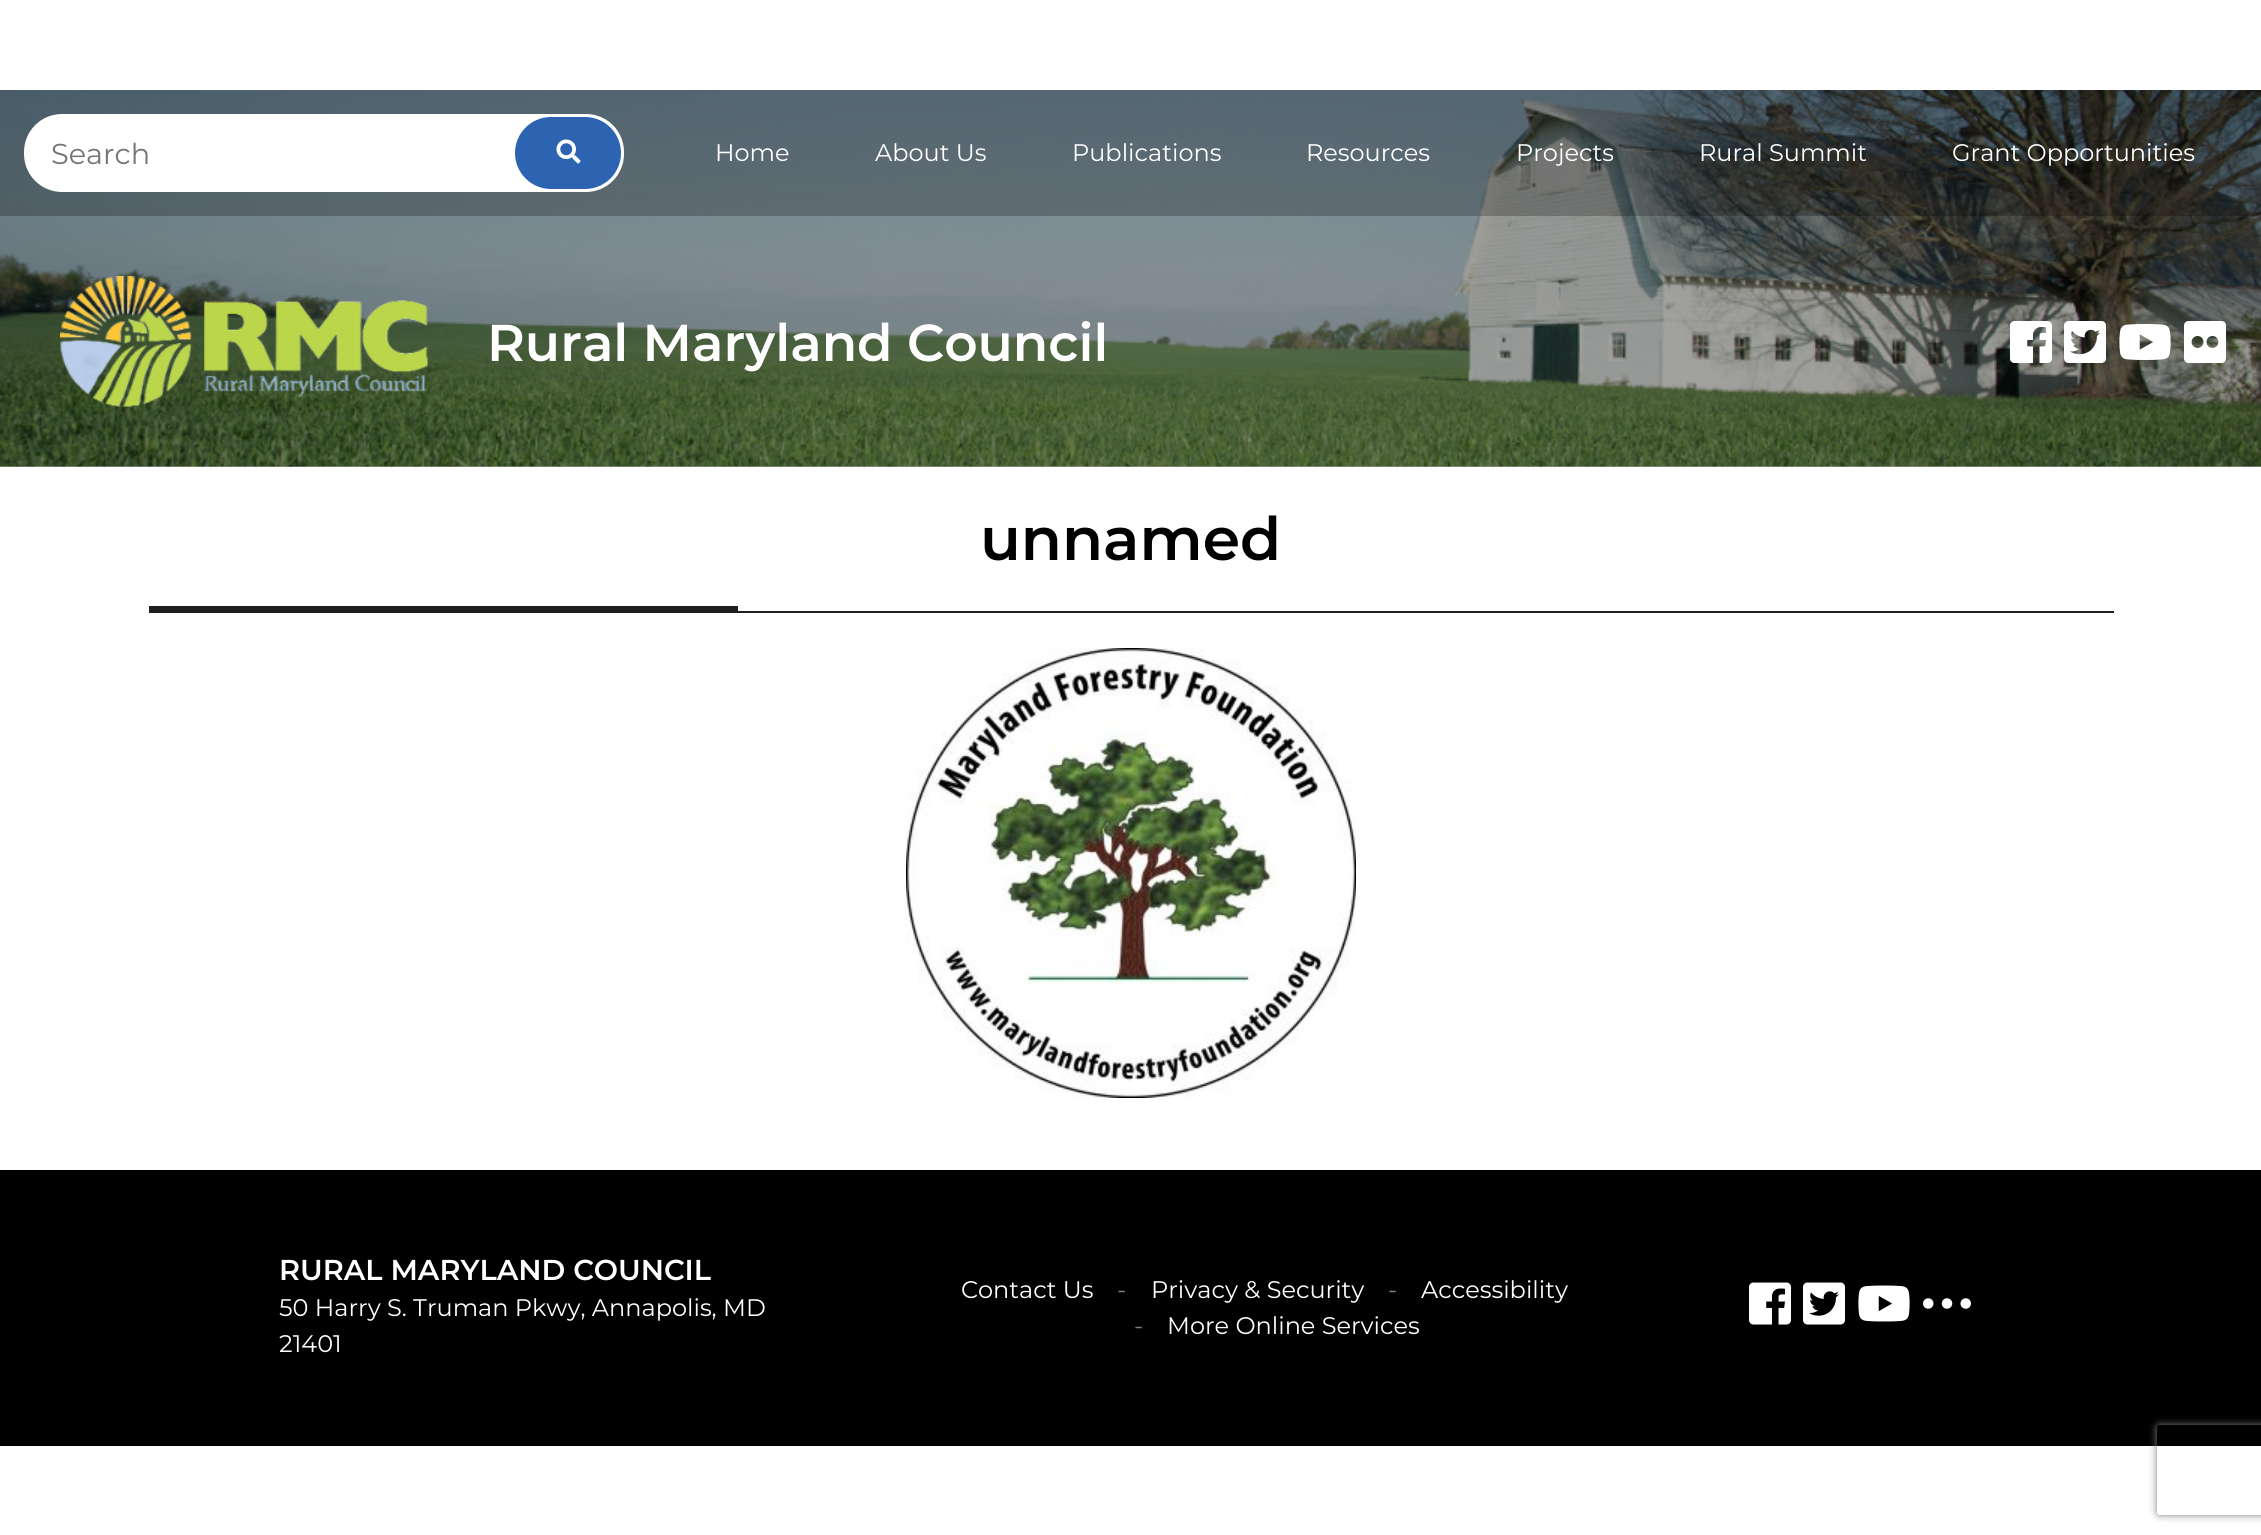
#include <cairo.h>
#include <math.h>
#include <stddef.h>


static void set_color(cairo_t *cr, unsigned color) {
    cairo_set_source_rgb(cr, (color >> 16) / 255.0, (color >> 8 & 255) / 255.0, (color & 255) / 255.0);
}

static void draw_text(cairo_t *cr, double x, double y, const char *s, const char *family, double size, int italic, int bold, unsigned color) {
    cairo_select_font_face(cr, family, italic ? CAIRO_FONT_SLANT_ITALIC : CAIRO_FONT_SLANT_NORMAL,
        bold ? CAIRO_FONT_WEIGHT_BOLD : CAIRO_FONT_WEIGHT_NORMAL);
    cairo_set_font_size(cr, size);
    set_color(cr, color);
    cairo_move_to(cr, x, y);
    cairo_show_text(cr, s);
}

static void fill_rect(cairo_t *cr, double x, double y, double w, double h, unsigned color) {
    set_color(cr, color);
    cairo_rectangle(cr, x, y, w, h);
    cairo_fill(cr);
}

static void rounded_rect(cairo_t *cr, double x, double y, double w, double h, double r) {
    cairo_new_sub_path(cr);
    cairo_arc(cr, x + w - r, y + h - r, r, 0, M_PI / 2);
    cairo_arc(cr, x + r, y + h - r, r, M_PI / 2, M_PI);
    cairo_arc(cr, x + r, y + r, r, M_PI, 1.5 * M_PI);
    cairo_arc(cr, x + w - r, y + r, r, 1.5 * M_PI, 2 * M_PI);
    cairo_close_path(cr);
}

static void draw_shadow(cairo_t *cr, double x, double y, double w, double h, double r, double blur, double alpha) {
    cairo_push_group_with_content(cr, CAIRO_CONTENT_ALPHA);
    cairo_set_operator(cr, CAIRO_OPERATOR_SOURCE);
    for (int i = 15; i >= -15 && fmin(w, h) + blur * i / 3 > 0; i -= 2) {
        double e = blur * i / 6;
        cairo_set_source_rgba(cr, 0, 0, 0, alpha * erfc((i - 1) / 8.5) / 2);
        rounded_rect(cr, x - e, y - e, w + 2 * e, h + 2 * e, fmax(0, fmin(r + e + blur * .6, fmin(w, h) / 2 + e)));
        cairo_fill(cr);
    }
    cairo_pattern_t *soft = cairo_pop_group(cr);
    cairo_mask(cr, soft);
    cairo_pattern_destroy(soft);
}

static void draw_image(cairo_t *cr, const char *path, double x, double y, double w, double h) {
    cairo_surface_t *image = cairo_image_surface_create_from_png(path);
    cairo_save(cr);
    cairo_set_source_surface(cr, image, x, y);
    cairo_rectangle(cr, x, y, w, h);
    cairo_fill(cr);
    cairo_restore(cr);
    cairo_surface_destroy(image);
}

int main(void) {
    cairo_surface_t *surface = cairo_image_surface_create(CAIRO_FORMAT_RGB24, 2261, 1535);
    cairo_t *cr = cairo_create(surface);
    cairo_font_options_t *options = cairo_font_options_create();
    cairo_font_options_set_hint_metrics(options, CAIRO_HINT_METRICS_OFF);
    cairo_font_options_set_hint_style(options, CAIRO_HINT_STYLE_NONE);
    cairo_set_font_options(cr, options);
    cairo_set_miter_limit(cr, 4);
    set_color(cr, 0xFFFFFF);
    cairo_paint(cr);
    draw_image(cr, "assets/img1.png", 0, 90, 2261, 377);
    cairo_set_source_rgba(cr, 0, 0, 0, 0.5);
    cairo_rectangle(cr, 0, 90, 2261, 126);
    cairo_fill(cr);
    set_color(cr, 0xFFFFFF);
    rounded_rect(cr, 24, 114, 600, 78, 38);
    cairo_fill(cr);
    draw_text(cr, 51, 164, "Search", "Montserrat", 28.75, 0, 0, 0x757575);
    set_color(cr, 0x2D64B1);
    rounded_rect(cr, 515, 117, 106, 72, 36);
    cairo_fill(cr);
    draw_image(cr, "assets/img2.png", 556, 139, 25, 25);
    draw_text(cr, 715, 161, "Home", "Montserrat", 24, 0, 0, 0xFFFFFF);
    draw_text(cr, 875, 161, "About Us", "Montserrat", 24, 0, 0, 0xFFFFFF);
    draw_text(cr, 1072, 161, "Publications", "Montserrat", 24, 0, 0, 0xFFFFFF);
    draw_text(cr, 1306, 161, "Resources", "Montserrat", 24, 0, 0, 0xFFFFFF);
    draw_text(cr, 1516, 161, "Projects", "Montserrat", 24, 0, 0, 0xFFFFFF);
    draw_text(cr, 1699, 161, "Rural Summit", "Montserrat", 24, 0, 0, 0xFFFFFF);
    draw_text(cr, 1952, 161, "Grant Opportunities", "Montserrat", 24, 0, 0, 0xFFFFFF);
    cairo_set_source_rgba(cr, 0, 0, 0, 0.35);
    cairo_rectangle(cr, 0, 216, 2261, 251);
    cairo_fill(cr);
    draw_image(cr, "assets/img3.png", 60, 276, 368, 131);
    draw_text(cr, 487, 361, "Rural Maryland Council", "Montserrat SemiBold", 51.8, 0, 0, 0xFFFFFF);
    draw_image(cr, "assets/img4.png", 2010, 321, 42, 42);
    draw_image(cr, "assets/img5.png", 2064, 321, 42, 42);
    draw_image(cr, "assets/img6.png", 2119, 324, 52, 36);
    draw_image(cr, "assets/img7.png", 2184, 321, 42, 42);
    fill_rect(cr, 149, 611, 1965, 2, 0x1E1E1E);
    draw_text(cr, 980, 560, "unnamed", "Montserrat SemiBold", 60, 0, 0, 0x000000);
    fill_rect(cr, 149, 606, 589, 5, 0x1E1E1E);
    draw_image(cr, "assets/img8.png", 906, 648, 450, 450);
    fill_rect(cr, 0, 1170, 2261, 276, 0x000000);
    draw_text(cr, 279, 1280, "RURAL MARYLAND COUNCIL", "Montserrat SemiBold", 28.75, 0, 0, 0xFFFFFF);
    draw_text(cr, 279, 1316, "50 Harry S. Truman Pkwy, Annapolis, MD", "Montserrat", 24, 0, 0, 0xFFFFFF);
    draw_text(cr, 279, 1352, "21401", "Montserrat", 24, 0, 0, 0xFFFFFF);
    draw_text(cr, 961, 1298, "Contact Us", "Montserrat", 24, 0, 0, 0xFFFFFF);
    draw_text(cr, 1117, 1298, "-", "Montserrat", 24, 0, 0, 0x808080);
    draw_text(cr, 1151, 1298, "Privacy & Security", "Montserrat", 24, 0, 0, 0xFFFFFF);
    draw_text(cr, 1388, 1298, "-", "Montserrat", 24, 0, 0, 0x808080);
    draw_text(cr, 1421, 1298, "Accessibility", "Montserrat", 24, 0, 0, 0xFFFFFF);
    draw_text(cr, 1134, 1334, "-", "Montserrat", 24, 0, 0, 0x808080);
    draw_text(cr, 1167, 1334, "More Online Services", "Montserrat", 24, 0, 0, 0xFFFFFF);
    draw_image(cr, "assets/img9.png", 1749, 1282, 42, 43);
    draw_image(cr, "assets/img10.png", 1803, 1282, 42, 43);
    draw_image(cr, "assets/img11.png", 1858, 1285, 52, 37);
    draw_image(cr, "assets/img12.png", 1923, 1298, 48, 11);
    cairo_save(cr);
    cairo_set_fill_rule(cr, CAIRO_FILL_RULE_EVEN_ODD);
    cairo_new_path(cr);
    cairo_move_to(cr, 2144, 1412);
    cairo_line_to(cr, 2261, 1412);
    cairo_line_to(cr, 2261, 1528);
    cairo_line_to(cr, 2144, 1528);
    cairo_close_path(cr);
    cairo_move_to(cr, 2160, 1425);
    cairo_line_to(cr, 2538, 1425);
    cairo_curve_to(cr, 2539.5, 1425, 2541, 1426.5, 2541, 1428);
    cairo_line_to(cr, 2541, 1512);
    cairo_curve_to(cr, 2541, 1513.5, 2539.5, 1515, 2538, 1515);
    cairo_line_to(cr, 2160, 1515);
    cairo_curve_to(cr, 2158.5, 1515, 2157, 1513.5, 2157, 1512);
    cairo_line_to(cr, 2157, 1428);
    cairo_curve_to(cr, 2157, 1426.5, 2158.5, 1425, 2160, 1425);
    cairo_close_path(cr);
    cairo_clip(cr);
    set_color(cr, 0x808080);
    draw_shadow(cr, 2157, 1425, 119, 90, 3, 4, 1);
    cairo_restore(cr);
    cairo_surface_write_to_png(surface, "output.png");
    cairo_font_options_destroy(options);
    cairo_destroy(cr);
    cairo_surface_destroy(surface);
    return 0;
}
